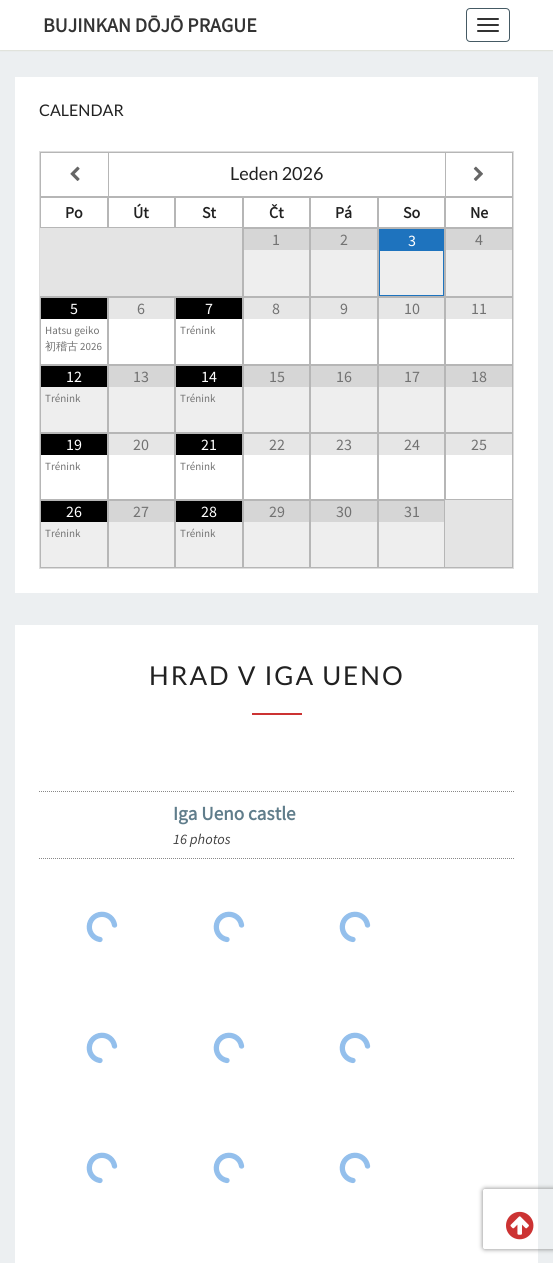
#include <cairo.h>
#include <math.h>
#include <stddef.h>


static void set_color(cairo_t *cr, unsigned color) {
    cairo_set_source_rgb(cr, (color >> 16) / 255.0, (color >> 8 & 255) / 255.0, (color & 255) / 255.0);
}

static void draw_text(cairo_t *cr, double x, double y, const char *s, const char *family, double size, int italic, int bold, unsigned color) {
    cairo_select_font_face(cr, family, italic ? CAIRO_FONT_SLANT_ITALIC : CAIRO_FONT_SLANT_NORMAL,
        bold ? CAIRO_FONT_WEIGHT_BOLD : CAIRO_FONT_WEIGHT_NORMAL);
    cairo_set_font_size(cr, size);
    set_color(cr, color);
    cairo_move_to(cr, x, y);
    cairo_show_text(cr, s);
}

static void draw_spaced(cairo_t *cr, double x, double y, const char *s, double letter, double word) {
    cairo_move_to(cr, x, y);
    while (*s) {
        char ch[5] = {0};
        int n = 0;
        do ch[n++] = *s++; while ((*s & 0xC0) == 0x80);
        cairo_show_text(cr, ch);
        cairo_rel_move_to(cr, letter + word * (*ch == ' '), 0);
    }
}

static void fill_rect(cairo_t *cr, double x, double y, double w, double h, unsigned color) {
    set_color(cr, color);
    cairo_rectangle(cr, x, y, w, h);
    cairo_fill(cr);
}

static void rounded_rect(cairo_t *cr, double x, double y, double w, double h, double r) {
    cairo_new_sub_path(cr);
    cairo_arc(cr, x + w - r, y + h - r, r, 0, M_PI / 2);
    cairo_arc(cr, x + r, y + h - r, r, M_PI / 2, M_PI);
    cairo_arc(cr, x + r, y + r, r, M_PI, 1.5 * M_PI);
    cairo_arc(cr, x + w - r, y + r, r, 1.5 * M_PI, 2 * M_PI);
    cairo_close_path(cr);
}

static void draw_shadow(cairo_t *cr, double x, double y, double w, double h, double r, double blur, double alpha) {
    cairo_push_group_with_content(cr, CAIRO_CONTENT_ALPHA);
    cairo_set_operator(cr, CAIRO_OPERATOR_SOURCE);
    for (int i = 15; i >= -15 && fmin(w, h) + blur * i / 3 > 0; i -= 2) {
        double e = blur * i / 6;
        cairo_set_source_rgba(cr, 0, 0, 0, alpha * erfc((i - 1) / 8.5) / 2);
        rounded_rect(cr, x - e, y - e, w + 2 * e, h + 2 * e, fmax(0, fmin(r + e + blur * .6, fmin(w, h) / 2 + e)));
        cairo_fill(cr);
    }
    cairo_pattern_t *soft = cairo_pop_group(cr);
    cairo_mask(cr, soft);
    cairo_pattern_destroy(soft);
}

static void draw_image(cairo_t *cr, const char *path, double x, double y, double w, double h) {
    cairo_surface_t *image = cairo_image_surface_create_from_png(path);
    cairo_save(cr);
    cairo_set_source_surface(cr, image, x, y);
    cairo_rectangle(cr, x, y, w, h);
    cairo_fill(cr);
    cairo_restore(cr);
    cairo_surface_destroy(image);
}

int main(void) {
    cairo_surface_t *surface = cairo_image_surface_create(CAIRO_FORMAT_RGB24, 553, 1263);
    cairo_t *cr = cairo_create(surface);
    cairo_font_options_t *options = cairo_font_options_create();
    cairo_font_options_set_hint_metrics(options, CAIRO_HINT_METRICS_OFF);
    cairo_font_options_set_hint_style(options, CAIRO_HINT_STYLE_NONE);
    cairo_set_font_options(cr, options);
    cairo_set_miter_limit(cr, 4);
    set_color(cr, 0xECEFF1);
    cairo_paint(cr);
    set_color(cr, 0x646400);
    draw_shadow(cr, 0, 1, 553, 50, 0, 0.5, 0.1);
    fill_rect(cr, 0, 0, 553, 50, 0xFFFFFF);
    draw_text(cr, 43, 32, "BUJINKAN DŌJŌ PRAGUE", "Source Sans Pro", 20, 0, 1, 0x333333);
    rounded_rect(cr, 466.5, 8.5, 43, 33, 3.5);
    set_color(cr, 0x455A64);
    cairo_set_line_width(cr, 1);
    cairo_stroke(cr);
    set_color(cr, 0x333333);
    rounded_rect(cr, 477, 18, 22, 2, 1);
    cairo_fill(cr);
    rounded_rect(cr, 477, 24, 22, 2, 1);
    cairo_fill(cr);
    rounded_rect(cr, 477, 30, 22, 2, 1);
    cairo_fill(cr);
    fill_rect(cr, 15, 77, 523, 516, 0xFFFFFF);
    draw_text(cr, 39, 116, "CALENDAR", "Lato", 16, 0, 0, 0x212121);
    cairo_rectangle(cr, 39.5, 151.5, 474, 417);
    set_color(cr, 0xDDDDDD);
    cairo_stroke(cr);
    fill_rect(cr, 40, 152, 405, 1, 0xB6B6B6);
    fill_rect(cr, 40, 196, 405, 1, 0xB6B6B6);
    fill_rect(cr, 40, 152, 1, 45, 0xB6B6B6);
    draw_image(cr, "assets/img1.png", 70, 166, 10, 15);
    cairo_rectangle(cr, 445.5, 152.5, 67, 44);
    cairo_stroke(cr);
    draw_image(cr, "assets/img2.png", 473, 166, 10, 15);
    fill_rect(cr, 108, 152, 1, 45, 0xB6B6B6);
    draw_text(cr, 230, 180, "Leden 2026", "Lato", 18, 0, 0, 0x212121);
    cairo_rectangle(cr, 40.5, 197.5, 67, 30);
    set_color(cr, 0xB6B6B6);
    cairo_stroke(cr);
    draw_text(cr, 65, 218, "Po", "Source Sans Pro", 16, 0, 1, 0x212121);
    cairo_rectangle(cr, 108.5, 197.5, 66, 30);
    set_color(cr, 0xB6B6B6);
    cairo_stroke(cr);
    draw_text(cr, 133, 218, "Út", "Source Sans Pro", 16, 0, 1, 0x212121);
    cairo_rectangle(cr, 175.5, 197.5, 67, 30);
    set_color(cr, 0xB6B6B6);
    cairo_stroke(cr);
    draw_text(cr, 202, 218, "St", "Source Sans Pro", 16, 0, 1, 0x212121);
    cairo_rectangle(cr, 243.5, 197.5, 66, 30);
    set_color(cr, 0xB6B6B6);
    cairo_stroke(cr);
    draw_text(cr, 269, 218, "Čt", "Source Sans Pro", 16, 0, 1, 0x212121);
    cairo_rectangle(cr, 310.5, 197.5, 67, 30);
    set_color(cr, 0xB6B6B6);
    cairo_stroke(cr);
    draw_text(cr, 335, 218, "Pá", "Source Sans Pro", 16, 0, 1, 0x212121);
    cairo_rectangle(cr, 378.5, 197.5, 66, 30);
    set_color(cr, 0xB6B6B6);
    cairo_stroke(cr);
    draw_text(cr, 403, 218, "So", "Source Sans Pro", 16, 0, 1, 0x212121);
    cairo_rectangle(cr, 445.5, 197.5, 67, 30);
    set_color(cr, 0xB6B6B6);
    cairo_stroke(cr);
    draw_text(cr, 470, 218, "Ne", "Source Sans Pro", 16, 0, 1, 0x212121);
    fill_rect(cr, 244, 250, 268, 46, 0xEEEEEE);
    fill_rect(cr, 40, 228, 202, 68, 0xE4E4E4);
    fill_rect(cr, 40, 296, 135, 1, 0xB6B6B6);
    fill_rect(cr, 242, 228, 1, 69, 0xB6B6B6);
    fill_rect(cr, 175, 296, 68, 1, 0xB6B6B6);
    cairo_rectangle(cr, 243.5, 228.5, 66, 68);
    cairo_stroke(cr);
    fill_rect(cr, 244, 229, 65, 21, 0xD6D6D6);
    draw_text(cr, 272, 245, "1", "Source Sans Pro", 16, 0, 0, 0x727272);
    cairo_rectangle(cr, 310.5, 228.5, 67, 68);
    set_color(cr, 0xB6B6B6);
    cairo_stroke(cr);
    fill_rect(cr, 311, 229, 66, 21, 0xD6D6D6);
    draw_text(cr, 340, 245, "2", "Source Sans Pro", 16, 0, 0, 0x727272);
    cairo_rectangle(cr, 378.5, 228.5, 66, 68);
    set_color(cr, 0xB6B6B6);
    cairo_stroke(cr);
    cairo_rectangle(cr, 379.5, 229.5, 64, 66);
    set_color(cr, 0x1E73BE);
    cairo_stroke(cr);
    fill_rect(cr, 380, 230, 63, 21, 0x1E73BE);
    draw_text(cr, 408, 246, "3", "Source Sans Pro", 16, 0, 0, 0xFFFFFF);
    cairo_rectangle(cr, 445.5, 228.5, 67, 68);
    set_color(cr, 0xB6B6B6);
    cairo_stroke(cr);
    fill_rect(cr, 446, 229, 66, 21, 0xD6D6D6);
    draw_text(cr, 475, 245, "4", "Source Sans Pro", 16, 0, 0, 0x727272);
    cairo_rectangle(cr, 40.5, 297.5, 67, 67);
    set_color(cr, 0xB6B6B6);
    cairo_stroke(cr);
    fill_rect(cr, 41, 298, 66, 21, 0x000000);
    draw_text(cr, 70, 314, "5", "Source Sans Pro", 16, 0, 0, 0xFFFFFF);
    draw_text(cr, 45, 334, "Hatsu geiko", "Source Sans Pro", 11, 0, 0, 0x727272);
    draw_text(cr, 45, 350, "初稽古", "WenQuanYi Zen Hei Medium", 11, 0, 0, 0x727272);
    draw_text(cr, 80, 350, "2026", "Source Sans Pro", 11, 0, 0, 0x727272);
    cairo_rectangle(cr, 108.5, 297.5, 66, 67);
    set_color(cr, 0xB6B6B6);
    cairo_stroke(cr);
    fill_rect(cr, 109, 298, 65, 21, 0xE6E6E6);
    draw_text(cr, 137, 314, "6", "Source Sans Pro", 16, 0, 0, 0x727272);
    cairo_rectangle(cr, 175.5, 297.5, 67, 67);
    set_color(cr, 0xB6B6B6);
    cairo_stroke(cr);
    fill_rect(cr, 176, 298, 66, 21, 0x000000);
    draw_text(cr, 205, 314, "7", "Source Sans Pro", 16, 0, 0, 0xFFFFFF);
    draw_text(cr, 180, 334, "Trénink", "Source Sans Pro", 11, 0, 0, 0x727272);
    cairo_rectangle(cr, 243.5, 297.5, 66, 67);
    set_color(cr, 0xB6B6B6);
    cairo_stroke(cr);
    fill_rect(cr, 244, 298, 65, 21, 0xE6E6E6);
    draw_text(cr, 272, 314, "8", "Source Sans Pro", 16, 0, 0, 0x727272);
    cairo_rectangle(cr, 310.5, 297.5, 67, 67);
    set_color(cr, 0xB6B6B6);
    cairo_stroke(cr);
    fill_rect(cr, 311, 298, 66, 21, 0xE6E6E6);
    draw_text(cr, 340, 314, "9", "Source Sans Pro", 16, 0, 0, 0x727272);
    cairo_rectangle(cr, 378.5, 297.5, 66, 67);
    set_color(cr, 0xB6B6B6);
    cairo_stroke(cr);
    fill_rect(cr, 379, 298, 65, 21, 0xE6E6E6);
    draw_text(cr, 404, 314, "10", "Source Sans Pro", 16, 0, 0, 0x727272);
    cairo_rectangle(cr, 445.5, 297.5, 67, 67);
    set_color(cr, 0xB6B6B6);
    cairo_stroke(cr);
    fill_rect(cr, 446, 298, 66, 21, 0xE6E6E6);
    draw_text(cr, 471, 314, "11", "Source Sans Pro", 16, 0, 0, 0x727272);
    fill_rect(cr, 41, 387, 471, 45, 0xEEEEEE);
    cairo_rectangle(cr, 40.5, 365.5, 67, 67);
    set_color(cr, 0xB6B6B6);
    cairo_stroke(cr);
    fill_rect(cr, 41, 366, 66, 21, 0x000000);
    draw_text(cr, 66, 382, "12", "Source Sans Pro", 16, 0, 0, 0xFFFFFF);
    draw_text(cr, 45, 402, "Trénink", "Source Sans Pro", 11, 0, 0, 0x727272);
    cairo_rectangle(cr, 108.5, 365.5, 66, 67);
    set_color(cr, 0xB6B6B6);
    cairo_stroke(cr);
    fill_rect(cr, 109, 366, 65, 21, 0xD6D6D6);
    draw_text(cr, 133, 382, "13", "Source Sans Pro", 16, 0, 0, 0x727272);
    cairo_rectangle(cr, 175.5, 365.5, 67, 67);
    set_color(cr, 0xB6B6B6);
    cairo_stroke(cr);
    fill_rect(cr, 176, 366, 66, 21, 0x000000);
    draw_text(cr, 201, 382, "14", "Source Sans Pro", 16, 0, 0, 0xFFFFFF);
    draw_text(cr, 180, 402, "Trénink", "Source Sans Pro", 11, 0, 0, 0x727272);
    cairo_rectangle(cr, 243.5, 365.5, 66, 67);
    set_color(cr, 0xB6B6B6);
    cairo_stroke(cr);
    fill_rect(cr, 244, 366, 65, 21, 0xD6D6D6);
    draw_text(cr, 269, 382, "15", "Source Sans Pro", 16, 0, 0, 0x727272);
    cairo_rectangle(cr, 310.5, 365.5, 67, 67);
    set_color(cr, 0xB6B6B6);
    cairo_stroke(cr);
    fill_rect(cr, 311, 366, 66, 21, 0xD6D6D6);
    draw_text(cr, 336, 382, "16", "Source Sans Pro", 16, 0, 0, 0x727272);
    cairo_rectangle(cr, 378.5, 365.5, 66, 67);
    set_color(cr, 0xB6B6B6);
    cairo_stroke(cr);
    fill_rect(cr, 379, 366, 65, 21, 0xD6D6D6);
    draw_text(cr, 404, 382, "17", "Source Sans Pro", 16, 0, 0, 0x727272);
    cairo_rectangle(cr, 445.5, 365.5, 67, 67);
    set_color(cr, 0xB6B6B6);
    cairo_stroke(cr);
    fill_rect(cr, 446, 366, 66, 21, 0xD6D6D6);
    draw_text(cr, 471, 382, "18", "Source Sans Pro", 16, 0, 0, 0x727272);
    cairo_rectangle(cr, 40.5, 433.5, 67, 66);
    set_color(cr, 0xB6B6B6);
    cairo_stroke(cr);
    fill_rect(cr, 41, 434, 66, 21, 0x000000);
    draw_text(cr, 66, 450, "19", "Source Sans Pro", 16, 0, 0, 0xFFFFFF);
    draw_text(cr, 45, 470, "Trénink", "Source Sans Pro", 11, 0, 0, 0x727272);
    cairo_rectangle(cr, 108.5, 433.5, 66, 66);
    set_color(cr, 0xB6B6B6);
    cairo_stroke(cr);
    fill_rect(cr, 109, 434, 65, 21, 0xE6E6E6);
    draw_text(cr, 133, 450, "20", "Source Sans Pro", 16, 0, 0, 0x727272);
    cairo_rectangle(cr, 175.5, 433.5, 67, 66);
    set_color(cr, 0xB6B6B6);
    cairo_stroke(cr);
    fill_rect(cr, 176, 434, 66, 21, 0x000000);
    draw_text(cr, 201, 450, "21", "Source Sans Pro", 16, 0, 0, 0xFFFFFF);
    draw_text(cr, 180, 470, "Trénink", "Source Sans Pro", 11, 0, 0, 0x727272);
    cairo_rectangle(cr, 243.5, 433.5, 66, 66);
    set_color(cr, 0xB6B6B6);
    cairo_stroke(cr);
    fill_rect(cr, 244, 434, 65, 21, 0xE6E6E6);
    draw_text(cr, 269, 450, "22", "Source Sans Pro", 16, 0, 0, 0x727272);
    cairo_rectangle(cr, 310.5, 433.5, 67, 66);
    set_color(cr, 0xB6B6B6);
    cairo_stroke(cr);
    fill_rect(cr, 311, 434, 66, 21, 0xE6E6E6);
    draw_text(cr, 336, 450, "23", "Source Sans Pro", 16, 0, 0, 0x727272);
    cairo_rectangle(cr, 378.5, 433.5, 66, 66);
    set_color(cr, 0xB6B6B6);
    cairo_stroke(cr);
    fill_rect(cr, 379, 434, 65, 21, 0xE6E6E6);
    draw_text(cr, 404, 450, "24", "Source Sans Pro", 16, 0, 0, 0x727272);
    cairo_rectangle(cr, 445.5, 433.5, 67, 66);
    set_color(cr, 0xB6B6B6);
    cairo_stroke(cr);
    fill_rect(cr, 446, 434, 66, 21, 0xE6E6E6);
    draw_text(cr, 471, 450, "25", "Source Sans Pro", 16, 0, 0, 0x727272);
    fill_rect(cr, 41, 522, 403, 45, 0xEEEEEE);
    cairo_rectangle(cr, 40.5, 500.5, 67, 67);
    set_color(cr, 0xB6B6B6);
    cairo_stroke(cr);
    fill_rect(cr, 41, 501, 66, 21, 0x000000);
    draw_text(cr, 66, 517, "26", "Source Sans Pro", 16, 0, 0, 0xFFFFFF);
    draw_text(cr, 45, 537, "Trénink", "Source Sans Pro", 11, 0, 0, 0x727272);
    cairo_rectangle(cr, 108.5, 500.5, 66, 67);
    set_color(cr, 0xB6B6B6);
    cairo_stroke(cr);
    fill_rect(cr, 109, 501, 65, 21, 0xD6D6D6);
    draw_text(cr, 133, 517, "27", "Source Sans Pro", 16, 0, 0, 0x727272);
    cairo_rectangle(cr, 175.5, 500.5, 67, 67);
    set_color(cr, 0xB6B6B6);
    cairo_stroke(cr);
    fill_rect(cr, 176, 501, 66, 21, 0x000000);
    draw_text(cr, 201, 517, "28", "Source Sans Pro", 16, 0, 0, 0xFFFFFF);
    draw_text(cr, 180, 537, "Trénink", "Source Sans Pro", 11, 0, 0, 0x727272);
    cairo_rectangle(cr, 243.5, 500.5, 66, 67);
    set_color(cr, 0xB6B6B6);
    cairo_stroke(cr);
    fill_rect(cr, 244, 501, 65, 21, 0xD6D6D6);
    draw_text(cr, 269, 517, "29", "Source Sans Pro", 16, 0, 0, 0x727272);
    cairo_rectangle(cr, 310.5, 500.5, 67, 67);
    set_color(cr, 0xB6B6B6);
    cairo_stroke(cr);
    fill_rect(cr, 311, 501, 66, 21, 0xD6D6D6);
    draw_text(cr, 336, 517, "30", "Source Sans Pro", 16, 0, 0, 0x727272);
    cairo_rectangle(cr, 378.5, 500.5, 66, 67);
    set_color(cr, 0xB6B6B6);
    cairo_stroke(cr);
    fill_rect(cr, 379, 501, 65, 21, 0xD6D6D6);
    draw_text(cr, 404, 517, "31", "Source Sans Pro", 16, 0, 0, 0x727272);
    fill_rect(cr, 445, 500, 67, 67, 0xE4E4E4);
    fill_rect(cr, 512, 500, 1, 68, 0xB6B6B6);
    fill_rect(cr, 445, 567, 68, 1, 0xB6B6B6);
    fill_rect(cr, 15, 625, 523, 638, 0xFFFFFF);
    cairo_select_font_face(cr, "Lato", CAIRO_FONT_SLANT_NORMAL, CAIRO_FONT_WEIGHT_NORMAL);
    cairo_set_font_size(cr, 26);
    set_color(cr, 0x212121);
    draw_spaced(cr, 149, 685, "HRAD V IGA UENO", 2, 0);
    fill_rect(cr, 252, 713, 50, 2, 0xCC3333);
    cairo_new_path(cr);
    cairo_move_to(cr, 39, 791.5);
    cairo_line_to(cr, 514, 791.5);
    set_color(cr, 0x888888);
    cairo_set_dash(cr, (double[]){1, 1}, 2, 0);
    cairo_stroke(cr);
    cairo_new_path(cr);
    cairo_move_to(cr, 39, 858.5);
    cairo_line_to(cr, 514, 858.5);
    cairo_stroke(cr);
    draw_text(cr, 173, 820, "Iga Ueno castle", "Source Sans Pro", 19.25, 0, 1, 0x607D8B);
    draw_text(cr, 173, 844, "16 photos", "Source Sans Pro", 14.5, 1, 0, 0x424242);
    draw_image(cr, "assets/img3.png", 86, 911, 32, 32);
    draw_image(cr, "assets/img3.png", 213, 911, 32, 32);
    draw_image(cr, "assets/img3.png", 339, 911, 32, 32);
    draw_image(cr, "assets/img3.png", 86, 1032, 32, 32);
    draw_image(cr, "assets/img3.png", 213, 1032, 32, 32);
    draw_image(cr, "assets/img3.png", 339, 1032, 32, 32);
    draw_image(cr, "assets/img3.png", 86, 1152, 32, 32);
    draw_image(cr, "assets/img3.png", 213, 1152, 32, 32);
    draw_image(cr, "assets/img3.png", 339, 1152, 32, 32);
    cairo_save(cr);
    cairo_set_fill_rule(cr, CAIRO_FILL_RULE_EVEN_ODD);
    cairo_new_path(cr);
    cairo_move_to(cr, 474, 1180);
    cairo_line_to(cr, 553, 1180);
    cairo_line_to(cr, 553, 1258);
    cairo_line_to(cr, 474, 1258);
    cairo_close_path(cr);
    cairo_move_to(cr, 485, 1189);
    cairo_line_to(cr, 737, 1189);
    cairo_curve_to(cr, 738, 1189, 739, 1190, 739, 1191);
    cairo_line_to(cr, 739, 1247);
    cairo_curve_to(cr, 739, 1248, 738, 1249, 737, 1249);
    cairo_line_to(cr, 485, 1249);
    cairo_curve_to(cr, 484, 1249, 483, 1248, 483, 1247);
    cairo_line_to(cr, 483, 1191);
    cairo_curve_to(cr, 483, 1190, 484, 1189, 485, 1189);
    cairo_close_path(cr);
    cairo_clip(cr);
    set_color(cr, 0x808080);
    draw_shadow(cr, 483, 1189, 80, 60, 2, 2.5, 1);
    cairo_restore(cr);
    draw_image(cr, "assets/img4.png", 506, 1211, 28, 29);
    cairo_surface_write_to_png(surface, "output.png");
    cairo_font_options_destroy(options);
    cairo_destroy(cr);
    cairo_surface_destroy(surface);
    return 0;
}
